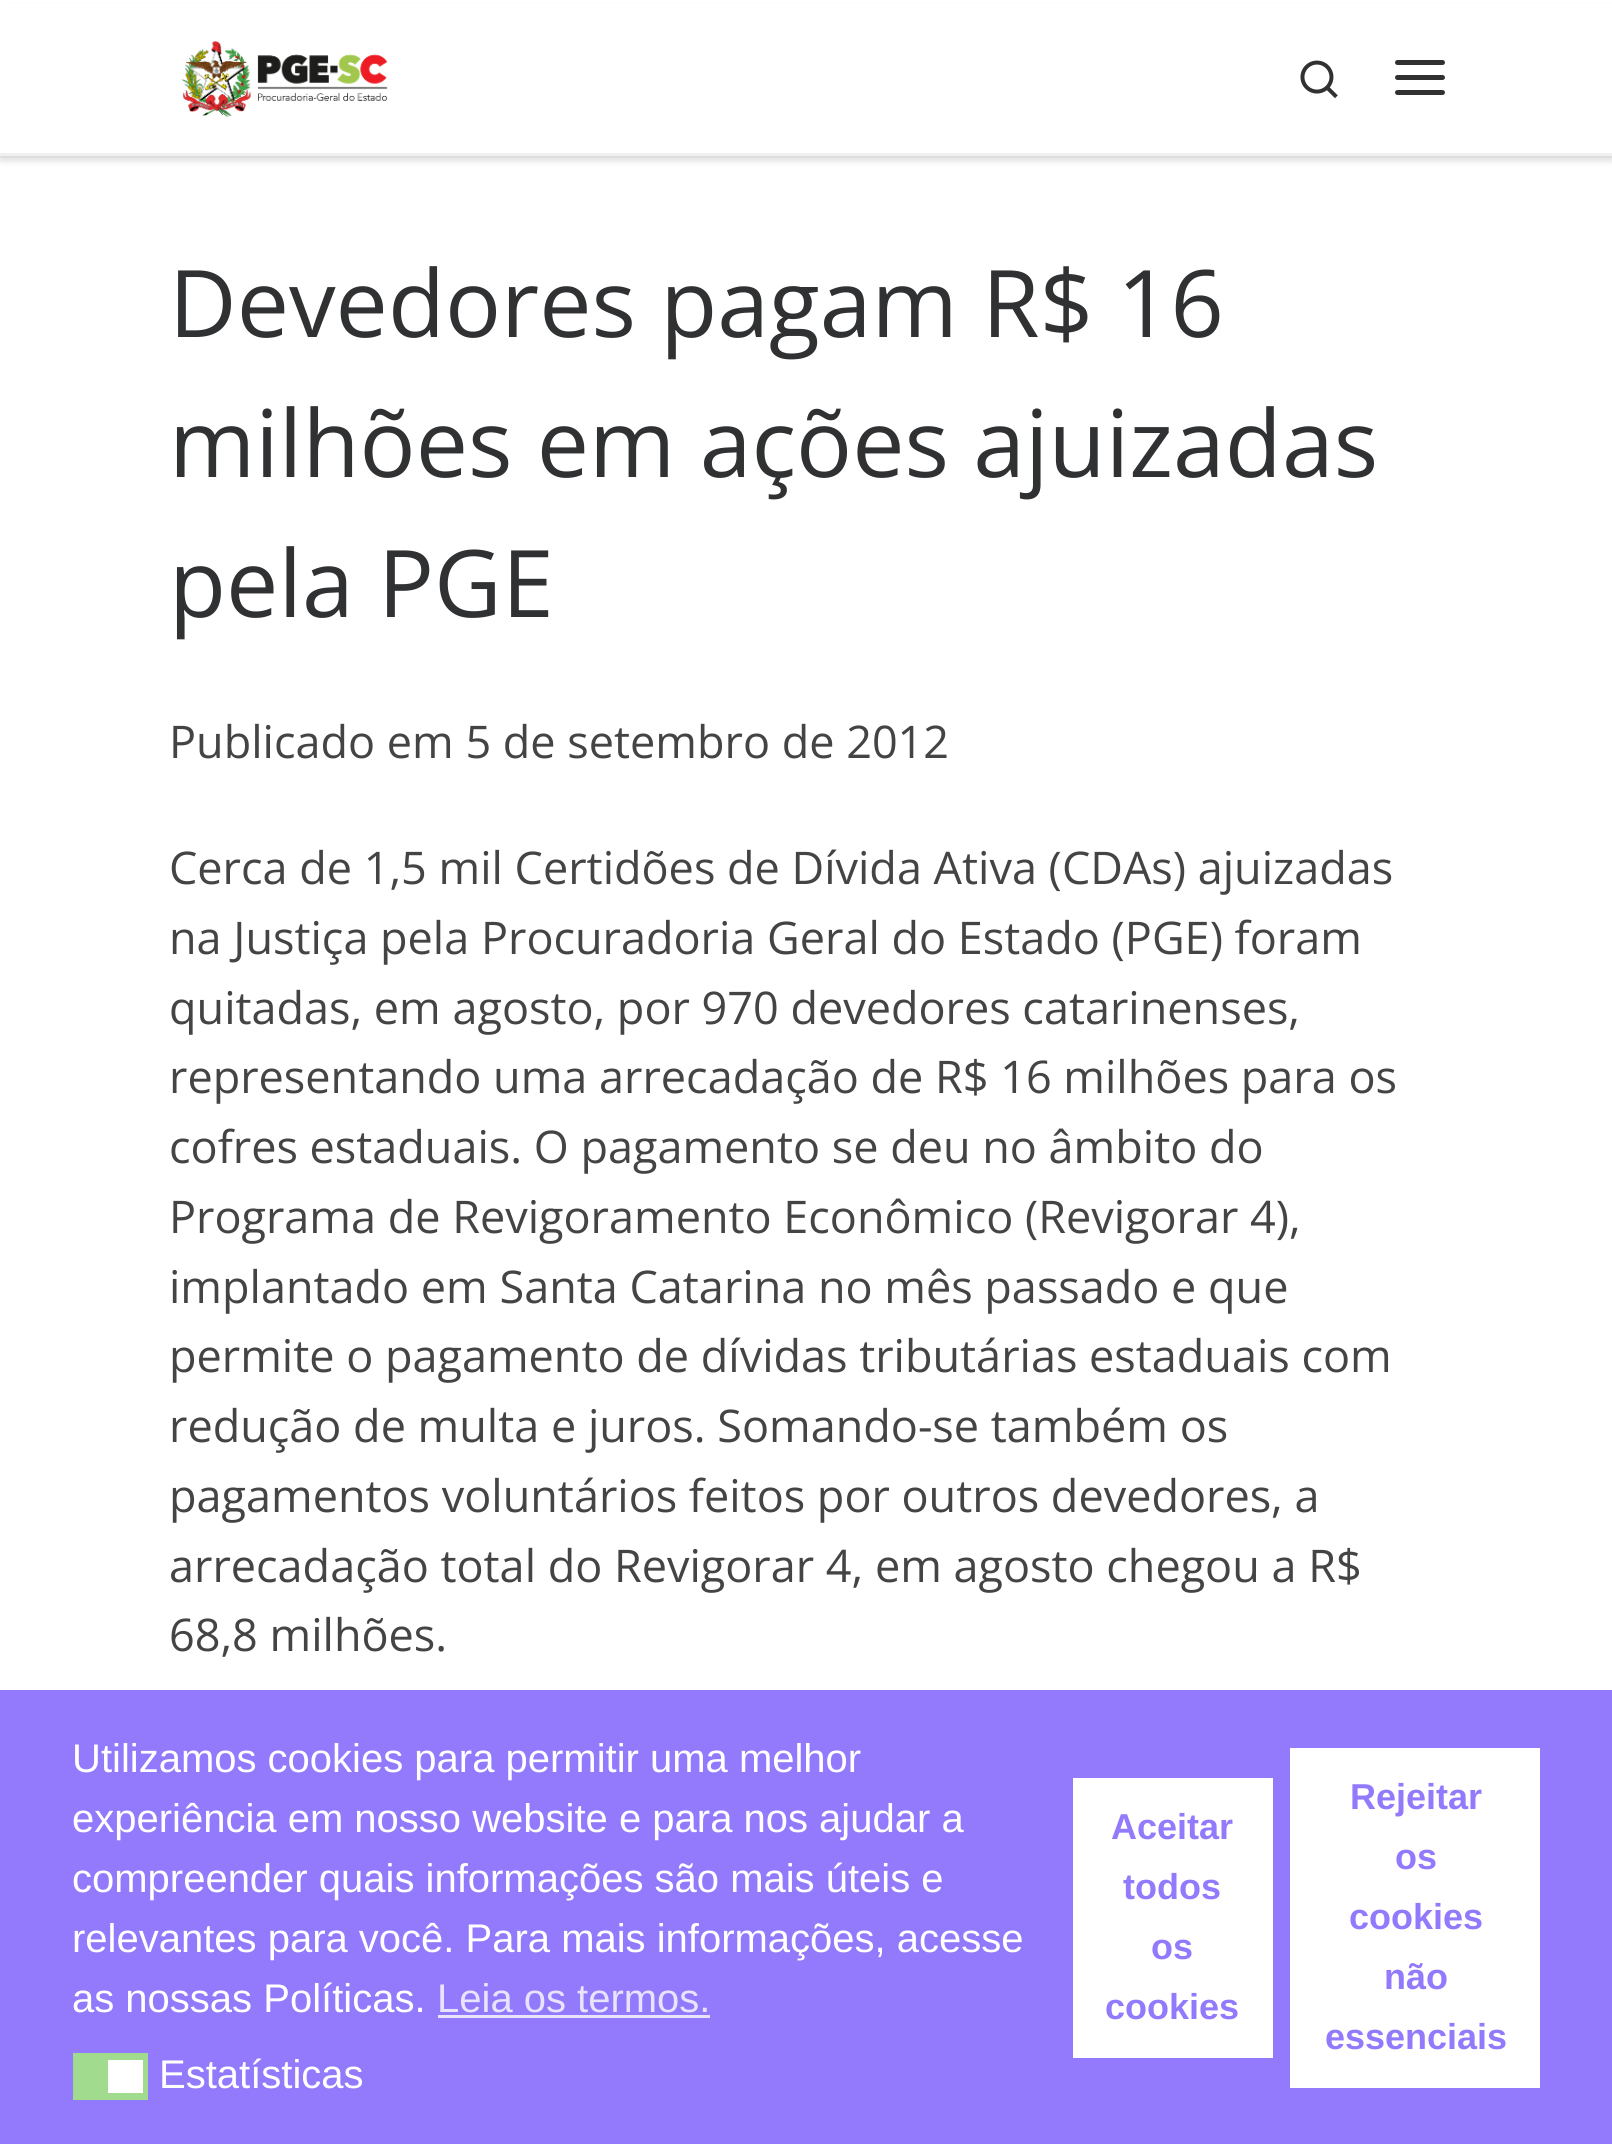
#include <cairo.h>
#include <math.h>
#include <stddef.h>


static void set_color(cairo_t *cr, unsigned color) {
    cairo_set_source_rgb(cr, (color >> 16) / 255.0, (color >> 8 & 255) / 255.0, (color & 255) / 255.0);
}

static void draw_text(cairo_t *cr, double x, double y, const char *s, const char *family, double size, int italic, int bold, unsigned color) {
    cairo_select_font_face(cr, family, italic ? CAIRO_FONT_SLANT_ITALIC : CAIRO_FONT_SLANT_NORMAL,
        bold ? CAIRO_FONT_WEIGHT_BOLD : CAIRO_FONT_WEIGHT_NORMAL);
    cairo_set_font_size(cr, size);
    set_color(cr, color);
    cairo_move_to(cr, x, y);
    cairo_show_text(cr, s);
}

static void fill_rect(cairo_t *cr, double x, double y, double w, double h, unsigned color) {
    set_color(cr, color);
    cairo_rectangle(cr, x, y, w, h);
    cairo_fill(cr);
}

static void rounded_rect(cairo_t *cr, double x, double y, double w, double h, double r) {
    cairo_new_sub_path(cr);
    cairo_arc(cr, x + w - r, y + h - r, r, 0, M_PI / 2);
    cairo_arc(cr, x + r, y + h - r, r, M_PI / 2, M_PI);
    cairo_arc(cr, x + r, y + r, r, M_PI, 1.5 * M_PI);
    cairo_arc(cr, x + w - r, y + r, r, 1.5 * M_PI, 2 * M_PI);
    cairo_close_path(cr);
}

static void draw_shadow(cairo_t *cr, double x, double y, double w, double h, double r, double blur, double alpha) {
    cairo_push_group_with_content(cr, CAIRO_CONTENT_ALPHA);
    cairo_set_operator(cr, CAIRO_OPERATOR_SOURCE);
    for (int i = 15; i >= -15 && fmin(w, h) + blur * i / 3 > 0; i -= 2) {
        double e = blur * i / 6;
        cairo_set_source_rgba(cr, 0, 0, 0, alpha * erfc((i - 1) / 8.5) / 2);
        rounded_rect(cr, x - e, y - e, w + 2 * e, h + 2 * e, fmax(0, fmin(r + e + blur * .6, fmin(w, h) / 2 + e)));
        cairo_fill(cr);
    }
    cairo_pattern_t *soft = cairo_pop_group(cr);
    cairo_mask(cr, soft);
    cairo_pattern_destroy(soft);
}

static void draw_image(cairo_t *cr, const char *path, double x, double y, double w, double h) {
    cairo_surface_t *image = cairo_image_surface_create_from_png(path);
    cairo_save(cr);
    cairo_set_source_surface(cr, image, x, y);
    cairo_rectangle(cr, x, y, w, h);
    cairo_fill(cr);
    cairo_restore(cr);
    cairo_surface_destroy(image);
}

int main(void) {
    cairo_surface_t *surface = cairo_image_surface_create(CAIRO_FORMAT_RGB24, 1612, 2144);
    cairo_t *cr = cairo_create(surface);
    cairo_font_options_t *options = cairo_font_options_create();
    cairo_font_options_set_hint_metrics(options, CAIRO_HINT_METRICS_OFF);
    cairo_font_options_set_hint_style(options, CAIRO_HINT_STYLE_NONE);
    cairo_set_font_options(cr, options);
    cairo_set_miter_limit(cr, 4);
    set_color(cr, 0xFFFFFF);
    cairo_paint(cr);
    set_color(cr, 0x666666);
    draw_shadow(cr, 0, 5, 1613, 158, 0, 2.5, 0.08);
    fill_rect(cr, 0, 3, 1612, 150, 0xFFFFFF);
    set_color(cr, 0xEFEFEF);
    cairo_new_path(cr);
    cairo_move_to(cr, 0, 155);
    cairo_line_to(cr, 0, 158);
    cairo_line_to(cr, 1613, 158);
    cairo_line_to(cr, 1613, 3);
    cairo_line_to(cr, 1612, 3);
    cairo_line_to(cr, 1612, 155);
    cairo_close_path(cr);
    cairo_fill(cr);
    cairo_save(cr);
    cairo_rectangle(cr, 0, 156, 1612, 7);
    cairo_clip(cr);
    set_color(cr, 0x000000);
    draw_shadow(cr, 0, 0, 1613, 155, 0, 6, 0.2);
    cairo_restore(cr);
    draw_image(cr, "assets/img1.png", 181, 41, 207, 76);
    draw_image(cr, "assets/img2.png", 1300, 60, 38, 39);
    set_color(cr, 0x313131);
    rounded_rect(cr, 1395, 60, 50, 5, 2.5);
    cairo_fill(cr);
    rounded_rect(cr, 1395, 75, 50, 5, 2.5);
    cairo_fill(cr);
    rounded_rect(cr, 1395, 90, 50, 5, 2.5);
    cairo_fill(cr);
    fill_rect(cr, 0, 153, 1612, 3, 0xF0F0F0);
    draw_text(cr, 169, 337, "Devedores pagam R$ 16", "Open Sans", 93.25, 0, 0, 0x303133);
    draw_text(cr, 169, 477, "milhões em ações ajuizadas", "Open Sans", 93.25, 0, 0, 0x303133);
    draw_text(cr, 169, 617, "pela PGE", "Open Sans", 93.25, 0, 0, 0x303133);
    draw_text(cr, 169, 758, "Publicado em 5 de setembro de 2012", "Open Sans", 45, 0, 0, 0x444444);
    draw_text(cr, 169, 884, "Cerca de 1,5 mil Certidões de Dívida Ativa (CDAs) ajuizadas", "Open Sans", 45, 0, 0, 0x444444);
    draw_text(cr, 169, 954, "na Justiça pela Procuradoria Geral do Estado (PGE) foram", "Open Sans", 45, 0, 0, 0x444444);
    draw_text(cr, 169, 1024, "quitadas, em agosto, por 970 devedores catarinenses,", "Open Sans", 45, 0, 0, 0x444444);
    draw_text(cr, 169, 1093, "representando uma arrecadação de R$ 16 milhões para os", "Open Sans", 45, 0, 0, 0x444444);
    draw_text(cr, 169, 1163, "cofres estaduais. O pagamento se deu no âmbito do", "Open Sans", 45, 0, 0, 0x444444);
    draw_text(cr, 169, 1233, "Programa de Revigoramento Econômico (Revigorar 4),", "Open Sans", 45, 0, 0, 0x444444);
    draw_text(cr, 169, 1303, "implantado em Santa Catarina no mês passado e que", "Open Sans", 45, 0, 0, 0x444444);
    draw_text(cr, 169, 1372, "permite o pagamento de dívidas tributárias estaduais com", "Open Sans", 45, 0, 0, 0x444444);
    draw_text(cr, 169, 1442, "redução de multa e juros. Somando-se também os", "Open Sans", 45, 0, 0, 0x444444);
    draw_text(cr, 169, 1512, "pagamentos voluntários feitos por outros devedores, a", "Open Sans", 45, 0, 0, 0x444444);
    draw_text(cr, 169, 1582, "arrecadação total do Revigorar 4, em agosto chegou a R$", "Open Sans", 45, 0, 0, 0x444444);
    draw_text(cr, 169, 1651, "68,8 milhões.", "Open Sans", 45, 0, 0, 0x444444);
    fill_rect(cr, 0, 1690, 1612, 454, 0x937AFC);
    draw_text(cr, 72, 1772, "Utilizamos cookies para permitir uma melhor", "Liberation Sans", 40, 0, 0, 0xFFFFFF);
    draw_text(cr, 72, 1832, "experiência em nosso website e para nos ajudar a", "Liberation Sans", 40, 0, 0, 0xFFFFFF);
    draw_text(cr, 72, 1892, "compreender quais informações são mais úteis e", "Liberation Sans", 40, 0, 0, 0xFFFFFF);
    draw_text(cr, 72, 1952, "relevantes para você. Para mais informações, acesse", "Liberation Sans", 40, 0, 0, 0xFFFFFF);
    draw_text(cr, 72, 2012, "as nossas Políticas.", "Liberation Sans", 40, 0, 0, 0xFFFFFF);
    draw_text(cr, 437, 2012, "Leia os termos.", "Liberation Sans", 40, 0, 0, 0xE9E4FE);
    fill_rect(cr, 438, 2015, 272, 3, 0xE9E4FE);
    fill_rect(cr, 73, 2053, 75, 47, 0xA0DB8E);
    fill_rect(cr, 108, 2060, 35, 33, 0xFFFFFF);
    draw_text(cr, 159, 2088, "Estatísticas", "Liberation Sans", 40, 0, 0, 0xFFFFFF);
    fill_rect(cr, 1073, 1778, 200, 280, 0xFFFFFF);
    draw_text(cr, 1111, 1839, "Aceitar", "Liberation Sans", 36, 0, 1, 0x937AFC);
    draw_text(cr, 1123, 1899, "todos", "Liberation Sans", 36, 0, 1, 0x937AFC);
    draw_text(cr, 1151, 1959, "os", "Liberation Sans", 36, 0, 1, 0x937AFC);
    draw_text(cr, 1105, 2019, "cookies", "Liberation Sans", 36, 0, 1, 0x937AFC);
    fill_rect(cr, 1290, 1748, 250, 340, 0xFFFFFF);
    draw_text(cr, 1350, 1809, "Rejeitar", "Liberation Sans", 36, 0, 1, 0x937AFC);
    draw_text(cr, 1395, 1869, "os", "Liberation Sans", 36, 0, 1, 0x937AFC);
    draw_text(cr, 1349, 1929, "cookies", "Liberation Sans", 36, 0, 1, 0x937AFC);
    draw_text(cr, 1384, 1989, "não", "Liberation Sans", 36, 0, 1, 0x937AFC);
    draw_text(cr, 1325, 2049, "essenciais", "Liberation Sans", 36, 0, 1, 0x937AFC);
    cairo_surface_write_to_png(surface, "output.png");
    cairo_font_options_destroy(options);
    cairo_destroy(cr);
    cairo_surface_destroy(surface);
    return 0;
}
